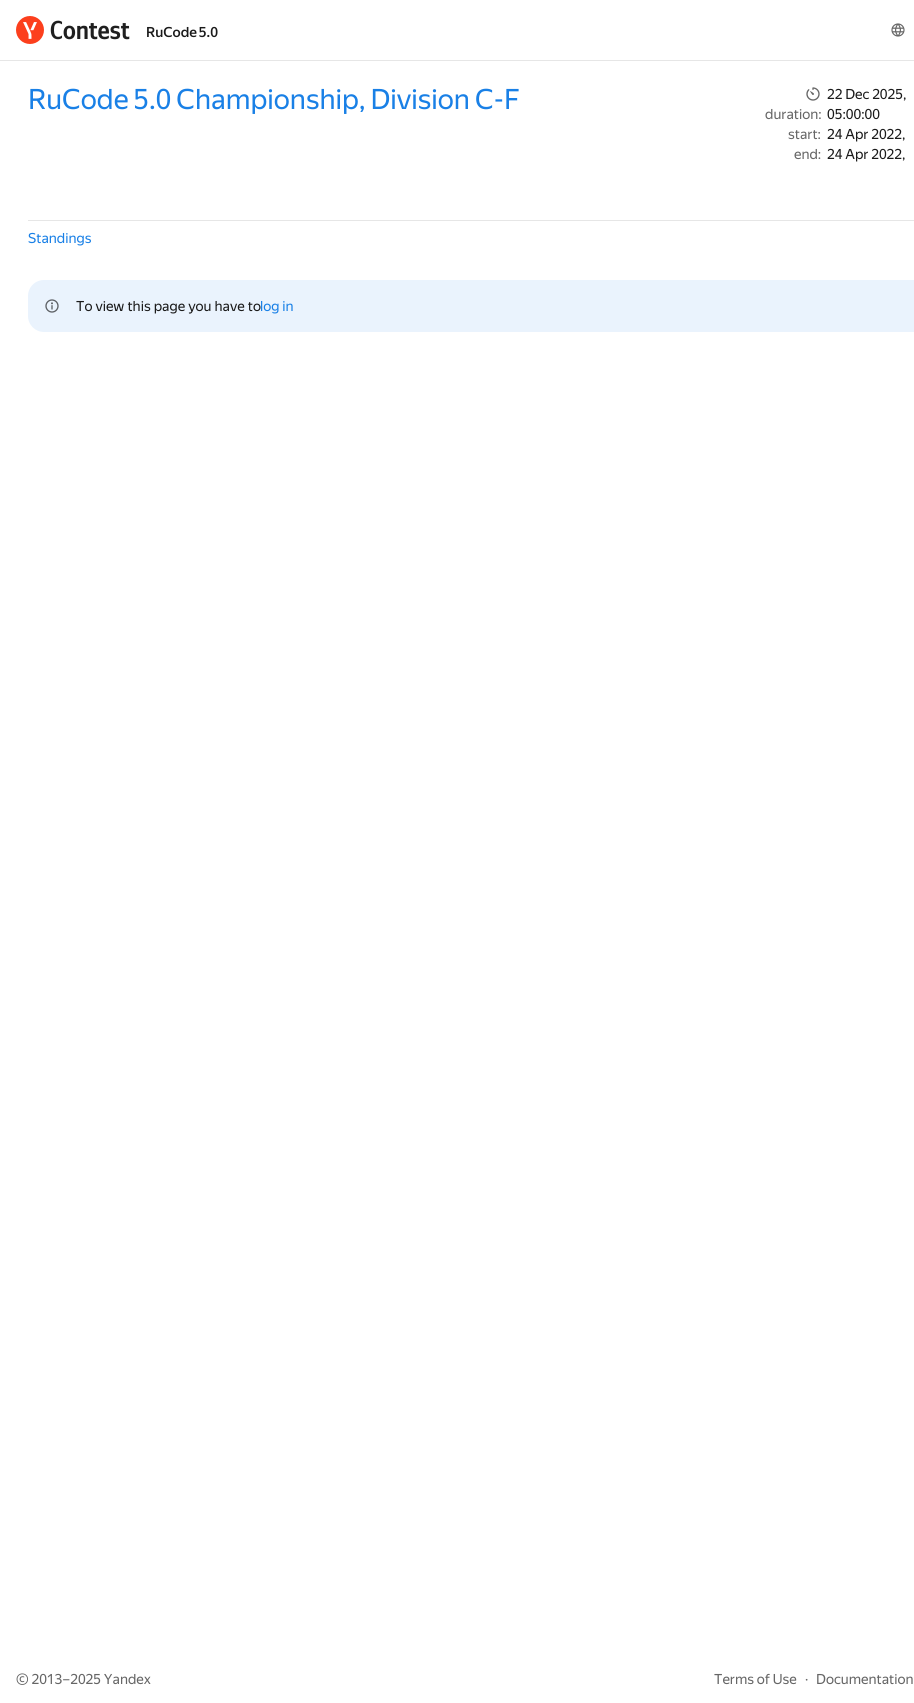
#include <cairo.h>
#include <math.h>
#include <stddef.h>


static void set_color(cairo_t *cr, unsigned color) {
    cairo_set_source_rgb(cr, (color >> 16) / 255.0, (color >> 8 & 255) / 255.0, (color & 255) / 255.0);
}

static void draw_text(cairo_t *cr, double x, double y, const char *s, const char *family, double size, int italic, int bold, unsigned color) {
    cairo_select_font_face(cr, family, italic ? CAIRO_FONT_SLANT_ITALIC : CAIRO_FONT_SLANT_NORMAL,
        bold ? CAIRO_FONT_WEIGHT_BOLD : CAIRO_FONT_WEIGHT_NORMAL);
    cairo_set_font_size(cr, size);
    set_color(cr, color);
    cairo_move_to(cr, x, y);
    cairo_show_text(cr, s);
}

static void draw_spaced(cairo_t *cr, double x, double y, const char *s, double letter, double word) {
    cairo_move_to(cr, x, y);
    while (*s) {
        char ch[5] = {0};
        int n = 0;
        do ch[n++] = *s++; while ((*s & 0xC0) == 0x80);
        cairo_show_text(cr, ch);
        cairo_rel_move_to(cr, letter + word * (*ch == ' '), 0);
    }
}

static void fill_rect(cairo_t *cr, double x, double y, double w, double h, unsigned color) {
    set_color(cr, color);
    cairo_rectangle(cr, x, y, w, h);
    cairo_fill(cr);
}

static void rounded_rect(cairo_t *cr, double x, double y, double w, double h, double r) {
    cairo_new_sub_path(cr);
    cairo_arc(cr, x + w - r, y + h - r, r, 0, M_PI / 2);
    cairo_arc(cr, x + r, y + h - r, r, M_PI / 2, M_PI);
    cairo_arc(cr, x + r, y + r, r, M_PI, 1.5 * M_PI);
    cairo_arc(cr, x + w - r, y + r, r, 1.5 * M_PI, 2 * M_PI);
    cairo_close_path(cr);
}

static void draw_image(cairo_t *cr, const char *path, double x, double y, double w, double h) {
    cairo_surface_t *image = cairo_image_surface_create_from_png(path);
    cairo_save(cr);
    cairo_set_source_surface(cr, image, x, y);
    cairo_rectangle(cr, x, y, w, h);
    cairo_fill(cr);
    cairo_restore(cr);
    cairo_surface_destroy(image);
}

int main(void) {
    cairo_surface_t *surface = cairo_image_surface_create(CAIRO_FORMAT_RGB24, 914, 1703);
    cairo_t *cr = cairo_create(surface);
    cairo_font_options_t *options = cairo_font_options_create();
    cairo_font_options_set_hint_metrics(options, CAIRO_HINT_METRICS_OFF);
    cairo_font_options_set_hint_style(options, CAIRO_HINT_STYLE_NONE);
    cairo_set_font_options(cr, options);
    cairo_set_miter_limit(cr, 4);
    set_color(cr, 0xFFFFFF);
    cairo_paint(cr);
    draw_image(cr, "assets/img1.png", 16, 16, 114, 28);
    cairo_select_font_face(cr, "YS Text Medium", CAIRO_FONT_SLANT_NORMAL, CAIRO_FONT_WEIGHT_NORMAL);
    cairo_set_font_size(cr, 14);
    set_color(cr, 0x1A1A1A);
    draw_spaced(cr, 146, 37, "RuCode 5.0", 0, -1);
    draw_image(cr, "assets/img2.png", 891, 23, 14, 14);
    fill_rect(cr, 0, 60, 914, 1, 0xE6E6E6);
    cairo_select_font_face(cr, "YS Text", CAIRO_FONT_SLANT_NORMAL, CAIRO_FONT_WEIGHT_NORMAL);
    cairo_set_font_size(cr, 28);
    set_color(cr, 0x1980E6);
    draw_spaced(cr, 28, 109, "RuCode 5.0 Championship, Division C-F", 0, -0.5);
    draw_image(cr, "assets/img3.png", 806, 87, 14, 14);
    draw_text(cr, 827, 99, "22 Dec 2025,", "YS Text", 14, 0, 0, 0x1A1A1A);
    draw_text(cr, 765, 119, "duration:", "YS Text", 14, 0, 0, 0x666666);
    draw_text(cr, 827, 119, "05:00:00", "YS Text", 14, 0, 0, 0x1A1A1A);
    draw_text(cr, 788, 139, "start:", "YS Text", 14, 0, 0, 0x666666);
    draw_text(cr, 827, 139, "24 Apr 2022,", "YS Text", 14, 0, 0, 0x1A1A1A);
    draw_text(cr, 794, 159, "end:", "YS Text", 14, 0, 0, 0x666666);
    draw_text(cr, 827, 159, "24 Apr 2022,", "YS Text", 14, 0, 0, 0x1A1A1A);
    fill_rect(cr, 28, 220, 886, 1, 0xE6E6E6);
    draw_text(cr, 28, 243, "Standings", "YS Text", 14, 0, 0, 0x1980E6);
    set_color(cr, 0xEAF3FD);
    rounded_rect(cr, 28, 280, 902, 52, 16);
    cairo_fill(cr);
    draw_image(cr, "assets/img4.png", 45, 299, 14, 14);
    set_color(cr, 0x1A1A1A);
    draw_spaced(cr, 76, 311, "To view this page you have to", 0, 0.25);
    draw_text(cr, 260, 311, "log in", "YS Text", 14, 0, 0, 0x1980E6);
    draw_text(cr, 16, 1684, "© 2013–2025 Yandex", "YS Text", 14, 0, 0, 0x666666);
    draw_text(cr, 714, 1684, "Terms of Use", "YS Text", 14, 0, 0, 0x666666);
    draw_text(cr, 805, 1684, "·", "YS Text", 14, 0, 0, 0x666666);
    draw_text(cr, 816, 1684, "Documentation", "YS Text", 14, 0, 0, 0x666666);
    cairo_surface_write_to_png(surface, "output.png");
    cairo_font_options_destroy(options);
    cairo_destroy(cr);
    cairo_surface_destroy(surface);
    return 0;
}
